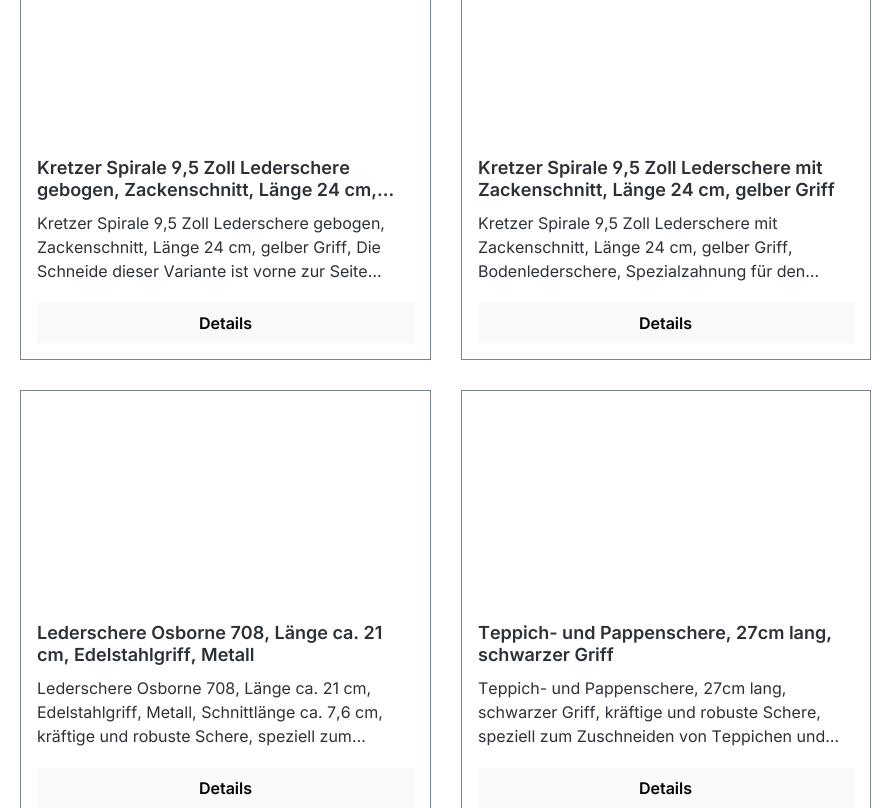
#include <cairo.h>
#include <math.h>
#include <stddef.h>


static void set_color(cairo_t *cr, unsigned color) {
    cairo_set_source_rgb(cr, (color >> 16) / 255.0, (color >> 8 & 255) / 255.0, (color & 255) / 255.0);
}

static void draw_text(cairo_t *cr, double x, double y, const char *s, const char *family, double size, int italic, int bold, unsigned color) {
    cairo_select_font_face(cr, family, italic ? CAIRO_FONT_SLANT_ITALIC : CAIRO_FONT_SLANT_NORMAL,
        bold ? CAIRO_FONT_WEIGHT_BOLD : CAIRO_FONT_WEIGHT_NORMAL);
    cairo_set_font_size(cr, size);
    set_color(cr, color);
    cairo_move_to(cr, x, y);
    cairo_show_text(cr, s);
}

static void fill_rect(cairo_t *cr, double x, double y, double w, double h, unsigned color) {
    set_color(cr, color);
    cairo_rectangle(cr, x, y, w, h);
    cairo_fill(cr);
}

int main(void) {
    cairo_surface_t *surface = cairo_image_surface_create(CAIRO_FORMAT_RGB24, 891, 808);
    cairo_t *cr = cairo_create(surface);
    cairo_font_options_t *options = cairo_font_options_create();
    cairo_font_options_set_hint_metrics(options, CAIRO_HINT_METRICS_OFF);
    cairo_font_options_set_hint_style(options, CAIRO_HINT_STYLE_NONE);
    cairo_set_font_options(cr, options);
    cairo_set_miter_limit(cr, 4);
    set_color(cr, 0xFFFFFF);
    cairo_paint(cr);
    cairo_rectangle(cr, 20.5, -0.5, 410, 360);
    set_color(cr, 0x798490);
    cairo_set_line_width(cr, 1);
    cairo_stroke(cr);
    draw_text(cr, 37, 174, "Kretzer Spirale 9,5 Zoll Lederschere", "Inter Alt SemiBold", 18, 0, 0, 0x2B3136);
    draw_text(cr, 37, 196, "gebogen, Zackenschnitt, Länge 24 cm,…", "Inter SemiBold", 18, 0, 0, 0x2B3136);
    draw_text(cr, 37, 229, "Kretzer Spirale 9,5 Zoll Lederschere gebogen,", "Inter Alt", 16, 0, 0, 0x2B3136);
    draw_text(cr, 37, 253, "Zackenschnitt, Länge 24 cm, gelber Griff, Die", "Inter", 16, 0, 0, 0x2B3136);
    draw_text(cr, 37, 277, "Schneide dieser Variante ist vorne zur Seite…", "Inter", 16, 0, 0, 0x2B3136);
    fill_rect(cr, 37, 303, 377, 40, 0xF9F9F9);
    draw_text(cr, 199, 329, "Details", "Inter SemiBold", 16, 0, 0, 0x000000);
    cairo_rectangle(cr, 461.5, -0.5, 409, 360);
    set_color(cr, 0x798490);
    cairo_stroke(cr);
    draw_text(cr, 478, 174, "Kretzer Spirale 9,5 Zoll Lederschere mit", "Inter Alt SemiBold", 18, 0, 0, 0x2B3136);
    draw_text(cr, 478, 196, "Zackenschnitt, Länge 24 cm, gelber Griff", "Inter SemiBold", 18, 0, 0, 0x2B3136);
    draw_text(cr, 478, 229, "Kretzer Spirale 9,5 Zoll Lederschere mit", "Inter Alt", 16, 0, 0, 0x2B3136);
    draw_text(cr, 478, 253, "Zackenschnitt, Länge 24 cm, gelber Griff,", "Inter", 16, 0, 0, 0x2B3136);
    draw_text(cr, 478, 277, "Bodenlederschere, Spezialzahnung für den…", "Inter", 16, 0, 0, 0x2B3136);
    fill_rect(cr, 478, 303, 376, 40, 0xF9F9F9);
    draw_text(cr, 639, 329, "Details", "Inter SemiBold", 16, 0, 0, 0x000000);
    cairo_rectangle(cr, 20.5, 390.5, 410, 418);
    set_color(cr, 0x798490);
    cairo_stroke(cr);
    draw_text(cr, 37, 639, "Lederschere Osborne 708, Länge ca. 21", "Inter SemiBold", 18, 0, 0, 0x2B3136);
    draw_text(cr, 37, 661, "cm, Edelstahlgriff, Metall", "Inter SemiBold", 18, 0, 0, 0x2B3136);
    draw_text(cr, 37, 694, "Lederschere Osborne 708, Länge ca. 21 cm,", "Inter", 16, 0, 0, 0x2B3136);
    draw_text(cr, 37, 718, "Edelstahlgriff, Metall, Schnittlänge ca. 7,6 cm,", "Inter", 16, 0, 0, 0x2B3136);
    draw_text(cr, 37, 742, "kräftige und robuste Schere, speziell zum…", "Inter", 16, 0, 0, 0x2B3136);
    fill_rect(cr, 37, 768, 377, 40, 0xF9F9F9);
    draw_text(cr, 199, 794, "Details", "Inter SemiBold", 16, 0, 0, 0x000000);
    cairo_rectangle(cr, 461.5, 390.5, 409, 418);
    set_color(cr, 0x798490);
    cairo_stroke(cr);
    draw_text(cr, 478, 639, "Teppich- und Pappenschere, 27cm lang,", "Inter SemiBold", 18, 0, 0, 0x2B3136);
    draw_text(cr, 478, 661, "schwarzer Griff", "Inter SemiBold", 18, 0, 0, 0x2B3136);
    draw_text(cr, 478, 694, "Teppich- und Pappenschere, 27cm lang,", "Inter", 16, 0, 0, 0x2B3136);
    draw_text(cr, 478, 718, "schwarzer Griff, kräftige und robuste Schere,", "Inter", 16, 0, 0, 0x2B3136);
    draw_text(cr, 478, 742, "speziell zum Zuschneiden von Teppichen und…", "Inter", 16, 0, 0, 0x2B3136);
    fill_rect(cr, 478, 768, 376, 40, 0xF9F9F9);
    draw_text(cr, 639, 794, "Details", "Inter SemiBold", 16, 0, 0, 0x000000);
    cairo_surface_write_to_png(surface, "output.png");
    cairo_font_options_destroy(options);
    cairo_destroy(cr);
    cairo_surface_destroy(surface);
    return 0;
}
